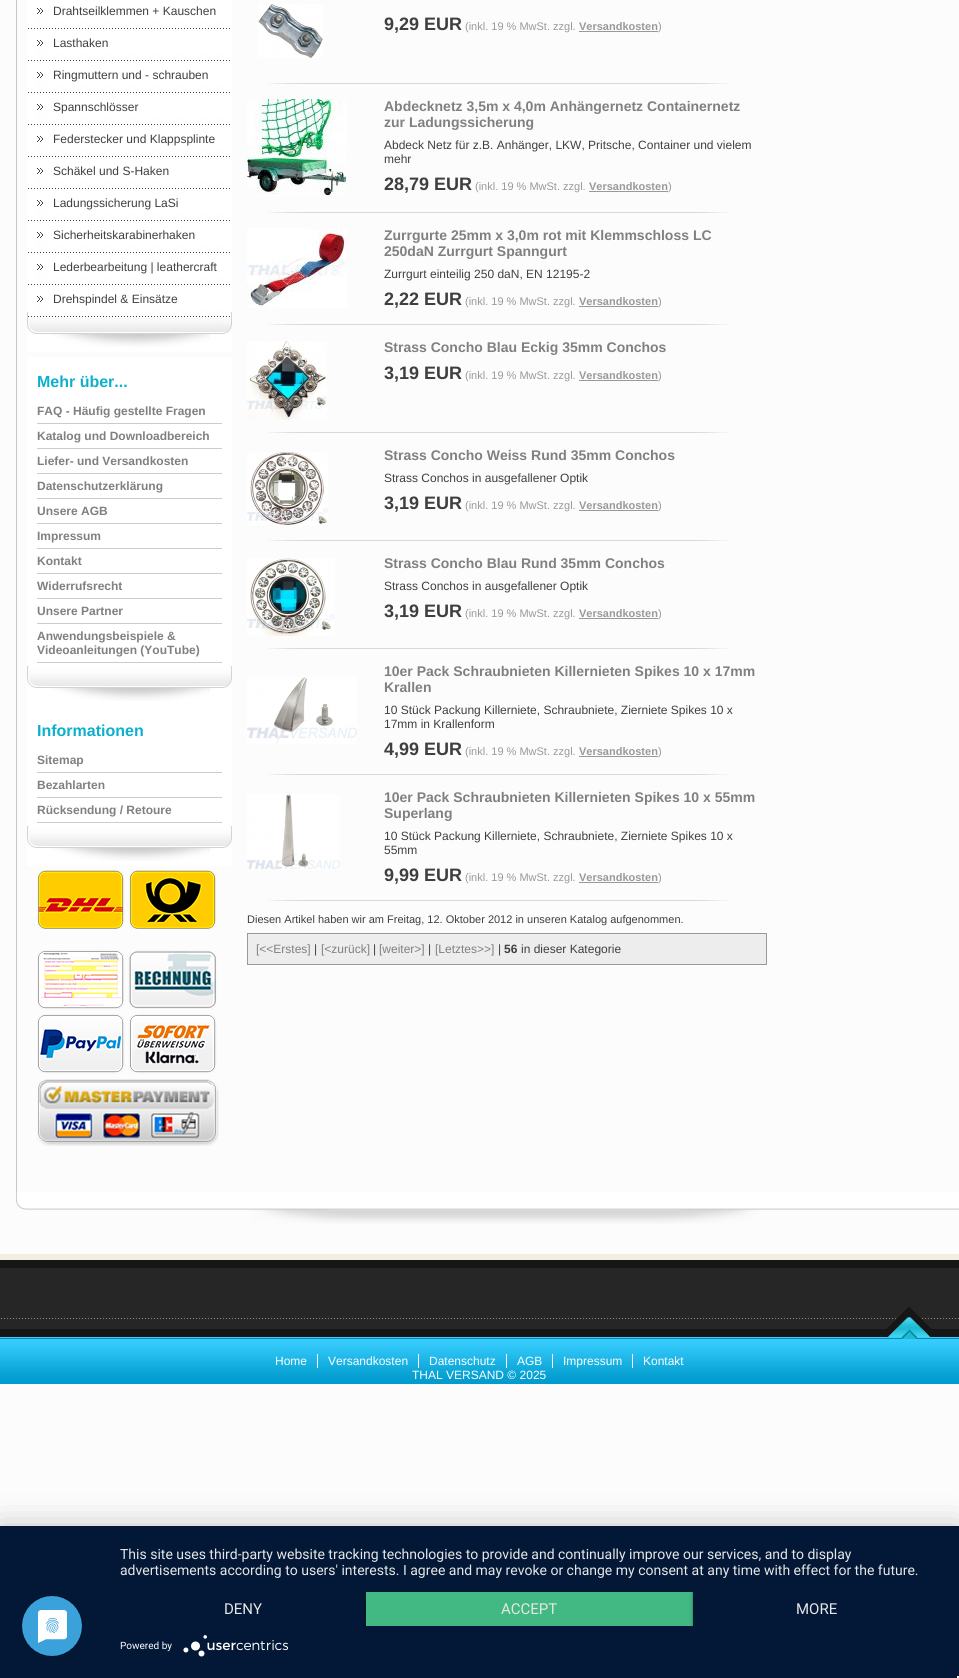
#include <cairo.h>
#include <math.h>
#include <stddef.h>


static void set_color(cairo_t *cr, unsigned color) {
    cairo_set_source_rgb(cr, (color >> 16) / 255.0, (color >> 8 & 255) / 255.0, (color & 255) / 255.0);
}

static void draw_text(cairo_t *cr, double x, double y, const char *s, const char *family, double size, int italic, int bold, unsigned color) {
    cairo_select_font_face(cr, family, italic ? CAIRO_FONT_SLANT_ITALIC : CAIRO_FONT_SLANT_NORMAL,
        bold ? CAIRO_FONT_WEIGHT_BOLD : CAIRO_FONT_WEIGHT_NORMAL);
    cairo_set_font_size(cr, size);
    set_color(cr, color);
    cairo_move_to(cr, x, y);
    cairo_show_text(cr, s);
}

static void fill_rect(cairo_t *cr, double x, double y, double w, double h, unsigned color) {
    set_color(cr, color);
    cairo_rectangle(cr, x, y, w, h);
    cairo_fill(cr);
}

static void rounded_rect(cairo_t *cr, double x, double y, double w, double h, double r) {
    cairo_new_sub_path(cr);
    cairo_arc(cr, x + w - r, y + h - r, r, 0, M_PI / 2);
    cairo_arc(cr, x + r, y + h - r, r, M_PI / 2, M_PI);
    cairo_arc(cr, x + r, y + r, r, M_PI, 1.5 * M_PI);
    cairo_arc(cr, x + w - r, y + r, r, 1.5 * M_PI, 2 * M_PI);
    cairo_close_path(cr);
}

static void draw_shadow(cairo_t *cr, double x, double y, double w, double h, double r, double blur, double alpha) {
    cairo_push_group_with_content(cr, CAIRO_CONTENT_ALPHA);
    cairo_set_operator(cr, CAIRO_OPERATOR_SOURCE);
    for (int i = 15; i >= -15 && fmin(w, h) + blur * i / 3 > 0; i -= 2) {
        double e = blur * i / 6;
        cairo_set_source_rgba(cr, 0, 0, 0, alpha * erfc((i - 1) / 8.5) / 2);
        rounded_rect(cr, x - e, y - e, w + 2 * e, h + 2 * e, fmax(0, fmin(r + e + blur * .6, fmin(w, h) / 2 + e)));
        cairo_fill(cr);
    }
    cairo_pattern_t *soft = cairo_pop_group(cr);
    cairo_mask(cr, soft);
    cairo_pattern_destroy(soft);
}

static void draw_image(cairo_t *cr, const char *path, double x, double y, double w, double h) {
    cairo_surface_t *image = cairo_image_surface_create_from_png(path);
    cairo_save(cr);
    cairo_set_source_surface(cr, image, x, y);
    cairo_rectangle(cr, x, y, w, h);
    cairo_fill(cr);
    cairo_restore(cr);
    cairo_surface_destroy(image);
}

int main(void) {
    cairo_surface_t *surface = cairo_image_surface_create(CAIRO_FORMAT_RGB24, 959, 1678);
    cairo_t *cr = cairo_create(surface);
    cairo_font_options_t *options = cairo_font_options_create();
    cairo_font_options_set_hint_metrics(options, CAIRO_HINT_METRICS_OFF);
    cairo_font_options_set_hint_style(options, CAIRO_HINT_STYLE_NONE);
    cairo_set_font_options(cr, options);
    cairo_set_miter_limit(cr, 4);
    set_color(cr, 0xFCFCFC);
    cairo_paint(cr);
    fill_rect(cr, 16, 0, 1, 1192, 0xC7C7C7);
    draw_image(cr, "assets/img1.png", 16, 1192, 943, 32);
    fill_rect(cr, 27, 0, 205, 352, 0xFFFFFF);
    draw_image(cr, "assets/img2.png", 27, 312, 205, 35);
    draw_image(cr, "assets/img3.png", 28, 7, 202, 22);
    draw_text(cr, 53, 15, "Drahtseilklemmen + Kauschen", "Liberation Sans", 12, 0, 0, 0x3F3F3F);
    draw_image(cr, "assets/img3.png", 28, 39, 202, 22);
    draw_text(cr, 53, 47, "Lasthaken", "Liberation Sans", 12, 0, 0, 0x3F3F3F);
    draw_image(cr, "assets/img3.png", 28, 71, 202, 22);
    draw_text(cr, 53, 79, "Ringmuttern und - schrauben", "Liberation Sans", 12, 0, 0, 0x3F3F3F);
    draw_image(cr, "assets/img3.png", 28, 103, 202, 22);
    draw_text(cr, 53, 111, "Spannschlösser", "Liberation Sans", 12, 0, 0, 0x3F3F3F);
    draw_image(cr, "assets/img3.png", 28, 135, 202, 22);
    draw_text(cr, 53, 143, "Federstecker und Klappsplinte", "Liberation Sans", 12, 0, 0, 0x3F3F3F);
    draw_image(cr, "assets/img3.png", 28, 167, 202, 22);
    draw_text(cr, 53, 175, "Schäkel und S-Haken", "Liberation Sans", 12, 0, 0, 0x3F3F3F);
    draw_image(cr, "assets/img3.png", 28, 199, 202, 22);
    draw_text(cr, 53, 207, "Ladungssicherung LaSi", "Liberation Sans", 12, 0, 0, 0x3F3F3F);
    draw_image(cr, "assets/img3.png", 28, 231, 202, 22);
    draw_text(cr, 53, 239, "Sicherheitskarabinerhaken", "Liberation Sans", 12, 0, 0, 0x3F3F3F);
    draw_image(cr, "assets/img3.png", 28, 263, 202, 22);
    draw_text(cr, 53, 271, "Lederbearbeitung | leathercraft", "Liberation Sans", 12, 0, 0, 0x3F3F3F);
    draw_image(cr, "assets/img4.png", 28, 295, 203, 22);
    draw_text(cr, 53, 303, "Drehspindel & Einsätze", "Liberation Sans", 12, 0, 0, 0x3F3F3F);
    fill_rect(cr, 27, 357, 205, 509, 0xFFFFFF);
    draw_image(cr, "assets/img2.png", 27, 666, 205, 35);
    draw_text(cr, 37, 387, "Mehr über...", "Liberation Sans", 16, 0, 1, 0x0CB0CC);
    fill_rect(cr, 37, 423, 185, 1, 0xCCCCCC);
    draw_text(cr, 37, 415, "FAQ - Häufig gestellte Fragen", "Liberation Sans", 12, 0, 1, 0x808080);
    fill_rect(cr, 37, 448, 185, 1, 0xCCCCCC);
    draw_text(cr, 37, 440, "Katalog und Downloadbereich", "Liberation Sans", 12, 0, 1, 0x808080);
    fill_rect(cr, 37, 473, 185, 1, 0xCCCCCC);
    draw_text(cr, 37, 465, "Liefer- und Versandkosten", "Liberation Sans", 12, 0, 1, 0x808080);
    fill_rect(cr, 37, 498, 185, 1, 0xCCCCCC);
    draw_text(cr, 37, 490, "Datenschutzerklärung", "Liberation Sans", 12, 0, 1, 0x808080);
    fill_rect(cr, 37, 523, 185, 1, 0xCCCCCC);
    draw_text(cr, 37, 515, "Unsere AGB", "Liberation Sans", 12, 0, 1, 0x808080);
    fill_rect(cr, 37, 548, 185, 1, 0xCCCCCC);
    draw_text(cr, 37, 540, "Impressum", "Liberation Sans", 12, 0, 1, 0x808080);
    fill_rect(cr, 37, 573, 185, 1, 0xCCCCCC);
    draw_text(cr, 37, 565, "Kontakt", "Liberation Sans", 12, 0, 1, 0x808080);
    fill_rect(cr, 37, 598, 185, 1, 0xCCCCCC);
    draw_text(cr, 37, 590, "Widerrufsrecht", "Liberation Sans", 12, 0, 1, 0x808080);
    fill_rect(cr, 37, 623, 185, 1, 0xCCCCCC);
    draw_text(cr, 37, 615, "Unsere Partner", "Liberation Sans", 12, 0, 1, 0x808080);
    fill_rect(cr, 37, 662, 185, 1, 0xCCCCCC);
    draw_text(cr, 37, 640, "Anwendungsbeispiele &", "Liberation Sans", 12, 0, 1, 0x808080);
    draw_text(cr, 37, 654, "Videoanleitungen (YouTube)", "Liberation Sans", 12, 0, 1, 0x808080);
    draw_image(cr, "assets/img2.png", 27, 826, 205, 35);
    draw_text(cr, 37, 736, "Informationen", "Liberation Sans", 16, 0, 1, 0x0CB0CC);
    fill_rect(cr, 37, 772, 185, 1, 0xCCCCCC);
    draw_text(cr, 37, 764, "Sitemap", "Liberation Sans", 12, 0, 1, 0x808080);
    fill_rect(cr, 37, 797, 185, 1, 0xCCCCCC);
    draw_text(cr, 37, 789, "Bezahlarten", "Liberation Sans", 12, 0, 1, 0x808080);
    fill_rect(cr, 37, 822, 185, 1, 0xCCCCCC);
    draw_text(cr, 37, 814, "Rücksendung / Retoure", "Liberation Sans", 12, 0, 1, 0x808080);
    draw_image(cr, "assets/img5.png", 37, 870, 179, 60);
    draw_image(cr, "assets/img6.png", 37, 950, 182, 196);
    draw_image(cr, "assets/img7.png", 258, 4, 65, 54);
    draw_text(cr, 384, 30, "9,29 EUR", "Liberation Sans", 18, 0, 1, 0x3F3F3F);
    draw_text(cr, 465, 30, "(inkl. 19 % MwSt. zzgl.", "Liberation Sans", 11, 0, 0, 0x999999);
    draw_text(cr, 579, 30, "Versandkosten", "Liberation Sans", 11, 0, 1, 0x999999);
    draw_text(cr, 658, 30, ")", "Liberation Sans", 11, 0, 0, 0x999999);
    fill_rect(cr, 579, 31, 79, 1, 0x999999);
    draw_image(cr, "assets/img8.png", 267, 83, 462, 1);
    draw_image(cr, "assets/img9.png", 247, 99, 100, 97);
    draw_text(cr, 384, 111, "Abdecknetz 3,5m x 4,0m Anhängernetz Containernetz", "Liberation Sans", 14, 0, 1, 0x808080);
    draw_text(cr, 384, 127, "zur Ladungssicherung", "Liberation Sans", 14, 0, 1, 0x808080);
    draw_text(cr, 384, 149, "Abdeck Netz für z.B. Anhänger, LKW, Pritsche, Container und vielem", "Liberation Sans", 12, 0, 0, 0x3F3F3F);
    draw_text(cr, 384, 163, "mehr", "Liberation Sans", 12, 0, 0, 0x3F3F3F);
    draw_text(cr, 384, 190, "28,79 EUR", "Liberation Sans", 18, 0, 1, 0x3F3F3F);
    draw_text(cr, 475, 190, "(inkl. 19 % MwSt. zzgl.", "Liberation Sans", 11, 0, 0, 0x999999);
    draw_text(cr, 589, 190, "Versandkosten", "Liberation Sans", 11, 0, 1, 0x999999);
    draw_text(cr, 668, 190, ")", "Liberation Sans", 11, 0, 0, 0x999999);
    fill_rect(cr, 589, 191, 79, 1, 0x999999);
    draw_image(cr, "assets/img8.png", 267, 212, 462, 1);
    draw_image(cr, "assets/img10.png", 247, 228, 100, 80);
    draw_text(cr, 384, 240, "Zurrgurte 25mm x 3,0m rot mit Klemmschloss LC", "Liberation Sans", 14, 0, 1, 0x808080);
    draw_text(cr, 384, 256, "250daN Zurrgurt Spanngurt", "Liberation Sans", 14, 0, 1, 0x808080);
    draw_text(cr, 384, 278, "Zurrgurt einteilig 250 daN, EN 12195-2", "Liberation Sans", 12, 0, 0, 0x3F3F3F);
    draw_text(cr, 384, 305, "2,22 EUR", "Liberation Sans", 18, 0, 1, 0x3F3F3F);
    draw_text(cr, 465, 305, "(inkl. 19 % MwSt. zzgl.", "Liberation Sans", 11, 0, 0, 0x999999);
    draw_text(cr, 579, 305, "Versandkosten", "Liberation Sans", 11, 0, 1, 0x999999);
    draw_text(cr, 658, 305, ")", "Liberation Sans", 11, 0, 0, 0x999999);
    fill_rect(cr, 579, 306, 79, 1, 0x999999);
    draw_image(cr, "assets/img8.png", 267, 324, 462, 1);
    draw_image(cr, "assets/img11.png", 247, 341, 80, 79);
    draw_text(cr, 384, 352, "Strass Concho Blau Eckig 35mm Conchos", "Liberation Sans", 14, 0, 1, 0x808080);
    draw_text(cr, 384, 379, "3,19 EUR", "Liberation Sans", 18, 0, 1, 0x3F3F3F);
    draw_text(cr, 465, 379, "(inkl. 19 % MwSt. zzgl.", "Liberation Sans", 11, 0, 0, 0x999999);
    draw_text(cr, 579, 379, "Versandkosten", "Liberation Sans", 11, 0, 1, 0x999999);
    draw_text(cr, 658, 379, ")", "Liberation Sans", 11, 0, 0, 0x999999);
    fill_rect(cr, 579, 380, 79, 1, 0x999999);
    draw_image(cr, "assets/img8.png", 267, 432, 462, 1);
    draw_image(cr, "assets/img12.png", 247, 452, 81, 73);
    draw_text(cr, 384, 460, "Strass Concho Weiss Rund 35mm Conchos", "Liberation Sans", 14, 0, 1, 0x808080);
    draw_text(cr, 384, 482, "Strass Conchos in ausgefallener Optik", "Liberation Sans", 12, 0, 0, 0x3F3F3F);
    draw_text(cr, 384, 509, "3,19 EUR", "Liberation Sans", 18, 0, 1, 0x3F3F3F);
    draw_text(cr, 465, 509, "(inkl. 19 % MwSt. zzgl.", "Liberation Sans", 11, 0, 0, 0x999999);
    draw_text(cr, 579, 509, "Versandkosten", "Liberation Sans", 11, 0, 1, 0x999999);
    draw_text(cr, 658, 509, ")", "Liberation Sans", 11, 0, 0, 0x999999);
    fill_rect(cr, 579, 510, 79, 1, 0x999999);
    draw_image(cr, "assets/img8.png", 267, 540, 462, 1);
    draw_image(cr, "assets/img13.png", 247, 558, 88, 78);
    draw_text(cr, 384, 568, "Strass Concho Blau Rund 35mm Conchos", "Liberation Sans", 14, 0, 1, 0x808080);
    draw_text(cr, 384, 590, "Strass Conchos in ausgefallener Optik", "Liberation Sans", 12, 0, 0, 0x3F3F3F);
    draw_text(cr, 384, 617, "3,19 EUR", "Liberation Sans", 18, 0, 1, 0x3F3F3F);
    draw_text(cr, 465, 617, "(inkl. 19 % MwSt. zzgl.", "Liberation Sans", 11, 0, 0, 0x999999);
    draw_text(cr, 579, 617, "Versandkosten", "Liberation Sans", 11, 0, 1, 0x999999);
    draw_text(cr, 658, 617, ")", "Liberation Sans", 11, 0, 0, 0x999999);
    fill_rect(cr, 579, 618, 79, 1, 0x999999);
    draw_image(cr, "assets/img8.png", 267, 648, 462, 1);
    draw_image(cr, "assets/img14.png", 247, 677, 110, 67);
    draw_text(cr, 384, 676, "10er Pack Schraubnieten Killernieten Spikes 10 x 17mm", "Liberation Sans", 14, 0, 1, 0x808080);
    draw_text(cr, 384, 692, "Krallen", "Liberation Sans", 14, 0, 1, 0x808080);
    draw_text(cr, 384, 714, "10 Stück Packung Killerniete, Schraubniete, Zierniete Spikes 10 x", "Liberation Sans", 12, 0, 0, 0x3F3F3F);
    draw_text(cr, 384, 728, "17mm in Krallenform", "Liberation Sans", 12, 0, 0, 0x3F3F3F);
    draw_text(cr, 384, 755, "4,99 EUR", "Liberation Sans", 18, 0, 1, 0x3F3F3F);
    draw_text(cr, 465, 755, "(inkl. 19 % MwSt. zzgl.", "Liberation Sans", 11, 0, 0, 0x999999);
    draw_text(cr, 579, 755, "Versandkosten", "Liberation Sans", 11, 0, 1, 0x999999);
    draw_text(cr, 658, 755, ")", "Liberation Sans", 11, 0, 0, 0x999999);
    fill_rect(cr, 579, 756, 79, 1, 0x999999);
    draw_image(cr, "assets/img8.png", 267, 774, 462, 1);
    draw_image(cr, "assets/img15.png", 247, 794, 93, 76);
    draw_text(cr, 384, 802, "10er Pack Schraubnieten Killernieten Spikes 10 x 55mm", "Liberation Sans", 14, 0, 1, 0x808080);
    draw_text(cr, 384, 818, "Superlang", "Liberation Sans", 14, 0, 1, 0x808080);
    draw_text(cr, 384, 840, "10 Stück Packung Killerniete, Schraubniete, Zierniete Spikes 10 x", "Liberation Sans", 12, 0, 0, 0x3F3F3F);
    draw_text(cr, 384, 854, "55mm", "Liberation Sans", 12, 0, 0, 0x3F3F3F);
    draw_text(cr, 384, 881, "9,99 EUR", "Liberation Sans", 18, 0, 1, 0x3F3F3F);
    draw_text(cr, 465, 881, "(inkl. 19 % MwSt. zzgl.", "Liberation Sans", 11, 0, 0, 0x999999);
    draw_text(cr, 579, 881, "Versandkosten", "Liberation Sans", 11, 0, 1, 0x999999);
    draw_text(cr, 658, 881, ")", "Liberation Sans", 11, 0, 0, 0x999999);
    fill_rect(cr, 579, 882, 79, 1, 0x999999);
    draw_image(cr, "assets/img8.png", 267, 900, 462, 1);
    draw_text(cr, 247, 923, "Diesen Artikel haben wir am Freitag, 12. Oktober 2012 in unseren Katalog aufgenommen.", "Liberation Sans", 11, 0, 0, 0x3F3F3F);
    set_color(cr, 0xEDEDED);
    cairo_rectangle(cr, 247.5, 933.5, 519, 31);
    cairo_fill_preserve(cr);
    set_color(cr, 0x999999);
    cairo_set_line_width(cr, 1);
    cairo_stroke(cr);
    draw_text(cr, 256, 953, "[<<Erstes]", "Liberation Sans", 12, 0, 0, 0x808080);
    draw_text(cr, 314, 953, "|", "Liberation Sans", 12, 0, 0, 0x3F3F3F);
    draw_text(cr, 321, 953, "[<zurück]", "Liberation Sans", 12, 0, 0, 0x808080);
    draw_text(cr, 373, 953, "|", "Liberation Sans", 12, 0, 0, 0x3F3F3F);
    draw_text(cr, 379, 953, "[weiter>]", "Liberation Sans", 12, 0, 0, 0x808080);
    draw_text(cr, 428, 953, "|", "Liberation Sans", 12, 0, 0, 0x3F3F3F);
    draw_text(cr, 435, 953, "[Letztes>>]", "Liberation Sans", 12, 0, 0, 0x808080);
    draw_text(cr, 498, 953, "|", "Liberation Sans", 12, 0, 0, 0x3F3F3F);
    draw_text(cr, 504, 953, "56", "Liberation Sans", 12, 0, 1, 0x3F3F3F);
    draw_text(cr, 521, 953, "in dieser Kategorie", "Liberation Sans", 12, 0, 0, 0x3F3F3F);
    fill_rect(cr, 0, 1254, 959, 6, 0xF1EFE0);
    fill_rect(cr, 0, 1268, 959, 61, 0x262626);
    fill_rect(cr, 0, 1260, 959, 8, 0x161616);
    fill_rect(cr, 0, 1329, 959, 8, 0x161616);
    draw_image(cr, "assets/img16.png", 0, 1318, 959, 1);
    draw_image(cr, "assets/img17.png", 0, 1337, 959, 47);
    draw_image(cr, "assets/img18.png", 887, 1307, 44, 32);
    fill_rect(cr, 317, 1354, 1, 14, 0xFFFFFF);
    draw_text(cr, 275, 1365, "Home", "Liberation Sans", 12, 0, 0, 0xFEFEFE);
    fill_rect(cr, 418, 1354, 1, 14, 0xFFFFFF);
    draw_text(cr, 328, 1365, "Versandkosten", "Liberation Sans", 12, 0, 0, 0xFEFEFE);
    fill_rect(cr, 506, 1354, 1, 14, 0xFFFFFF);
    draw_text(cr, 429, 1365, "Datenschutz", "Liberation Sans", 12, 0, 0, 0xFEFEFE);
    fill_rect(cr, 552, 1354, 1, 14, 0xFFFFFF);
    draw_text(cr, 517, 1365, "AGB", "Liberation Sans", 12, 0, 0, 0xFEFEFE);
    fill_rect(cr, 632, 1354, 1, 14, 0xFFFFFF);
    draw_text(cr, 563, 1365, "Impressum", "Liberation Sans", 12, 0, 0, 0xFEFEFE);
    draw_text(cr, 643, 1365, "Kontakt", "Liberation Sans", 12, 0, 0, 0xFEFEFE);
    draw_text(cr, 412, 1379, "THAL VERSAND © 2025", "Liberation Sans", 12, 0, 0, 0xFEFEFE);
    set_color(cr, 0x000000);
    draw_shadow(cr, 0, 1532, 959, 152, 0, 18, 0.3);
    fill_rect(cr, 0, 1526, 959, 152, 0x021836);
    draw_image(cr, "assets/img19.png", 21, 1595, 62, 62);
    draw_text(cr, 120, 1559, "This site uses third-party website tracking technologies to provide and continually improve our services, and to display", "Roboto", 14, 0, 0, 0xE6E6E6);
    draw_text(cr, 120, 1575, "advertisements according to users' interests. I agree and may revoke or change my consent at any time with effect for the future.", "Roboto", 14, 0, 0, 0xE6E6E6);
    draw_text(cr, 224, 1614, "DENY", "Roboto", 15, 0, 0, 0xE6E6E6);
    cairo_save(cr);
    cairo_rectangle(cr, 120, 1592, 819, 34);
    cairo_clip(cr);
    set_color(cr, 0x000000);
    draw_shadow(cr, 366, 1593, 327, 34, 0, 2, 0.4);
    cairo_restore(cr);
    fill_rect(cr, 366, 1592, 327, 34, 0x42B983);
    draw_text(cr, 501, 1614, "ACCEPT", "Roboto", 15, 0, 0, 0xE6E6E6);
    cairo_save(cr);
    cairo_rectangle(cr, 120, 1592, 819, 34);
    cairo_clip(cr);
    set_color(cr, 0x000000);
    draw_shadow(cr, 693, 1593, 246, 34, 0, 2, 0.4);
    cairo_restore(cr);
    fill_rect(cr, 693, 1592, 246, 34, 0x021836);
    draw_text(cr, 796, 1614, "MORE", "Roboto", 15, 0, 0, 0xE6E6E6);
    draw_text(cr, 120, 1649, "Powered by", "Roboto", 10, 0, 0, 0xFEFEFE);
    draw_image(cr, "assets/img20.png", 183, 1635, 106, 22);
    fill_rect(cr, 957, 1676, 2, 2, 0xF5F5F5);
    cairo_surface_write_to_png(surface, "output.png");
    cairo_font_options_destroy(options);
    cairo_destroy(cr);
    cairo_surface_destroy(surface);
    return 0;
}
